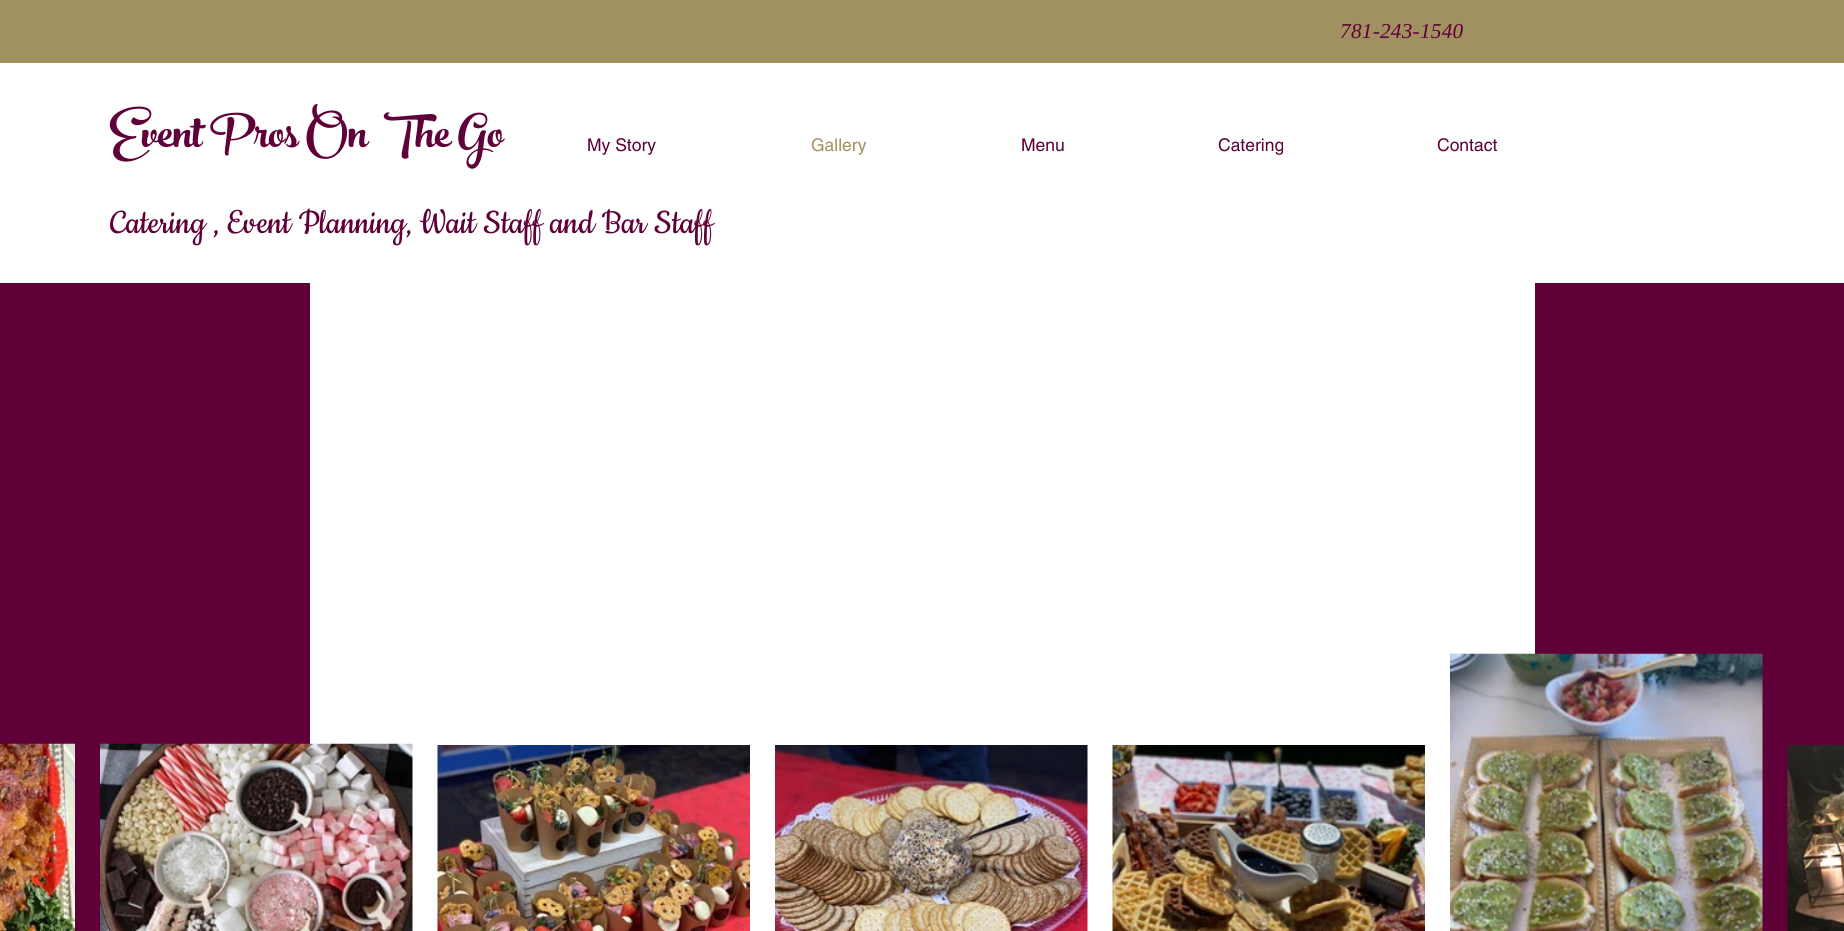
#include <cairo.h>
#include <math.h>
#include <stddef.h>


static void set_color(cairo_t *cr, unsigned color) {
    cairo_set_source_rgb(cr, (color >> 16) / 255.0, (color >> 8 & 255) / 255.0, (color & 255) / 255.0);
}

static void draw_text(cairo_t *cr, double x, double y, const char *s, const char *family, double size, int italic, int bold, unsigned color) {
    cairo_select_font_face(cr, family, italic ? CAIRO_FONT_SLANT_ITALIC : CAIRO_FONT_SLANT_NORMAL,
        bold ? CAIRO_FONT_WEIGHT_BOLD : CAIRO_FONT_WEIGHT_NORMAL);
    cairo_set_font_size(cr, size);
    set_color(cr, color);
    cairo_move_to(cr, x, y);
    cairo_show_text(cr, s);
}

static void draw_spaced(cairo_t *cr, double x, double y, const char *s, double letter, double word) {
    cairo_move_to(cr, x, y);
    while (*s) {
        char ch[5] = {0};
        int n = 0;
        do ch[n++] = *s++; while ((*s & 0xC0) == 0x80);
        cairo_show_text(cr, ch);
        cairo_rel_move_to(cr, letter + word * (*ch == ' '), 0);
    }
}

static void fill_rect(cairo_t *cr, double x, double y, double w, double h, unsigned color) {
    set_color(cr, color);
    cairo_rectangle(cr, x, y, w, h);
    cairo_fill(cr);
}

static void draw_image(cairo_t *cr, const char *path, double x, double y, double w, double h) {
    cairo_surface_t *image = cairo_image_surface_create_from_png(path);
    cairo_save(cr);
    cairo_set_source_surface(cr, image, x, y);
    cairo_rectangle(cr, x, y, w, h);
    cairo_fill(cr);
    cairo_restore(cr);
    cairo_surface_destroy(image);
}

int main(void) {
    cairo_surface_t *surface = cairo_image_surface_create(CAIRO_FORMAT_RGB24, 1844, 931);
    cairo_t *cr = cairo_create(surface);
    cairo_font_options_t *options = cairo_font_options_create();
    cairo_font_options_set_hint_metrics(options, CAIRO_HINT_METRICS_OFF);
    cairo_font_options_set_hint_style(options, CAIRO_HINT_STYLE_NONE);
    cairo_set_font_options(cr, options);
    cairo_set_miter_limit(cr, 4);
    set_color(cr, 0x5F0038);
    cairo_paint(cr);
    fill_rect(cr, 0, 0, 1844, 63, 0xA29160);
    cairo_select_font_face(cr, "Liberation Serif", CAIRO_FONT_SLANT_ITALIC, CAIRO_FONT_WEIGHT_NORMAL);
    cairo_set_font_size(cr, 21.25);
    set_color(cr, 0x5F0038);
    draw_spaced(cr, 1340, 38, "781-243-1540", 0.25, 0);
    fill_rect(cr, 0, 63, 1844, 220, 0xFFFFFF);
    draw_text(cr, 110, 147, "Event Pros On  The Go", "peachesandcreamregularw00", 67.5, 0, 0, 0x5F0038);
    draw_text(cr, 587, 151, "My Story", "helvetica", 17.5, 0, 0, 0x5F0038);
    draw_text(cr, 811, 151, "Gallery", "helvetica", 17.5, 0, 0, 0xA29160);
    draw_text(cr, 1021, 151, "Menu", "helvetica", 17.5, 0, 0, 0x5F0038);
    draw_text(cr, 1218, 151, "Catering", "helvetica", 17.5, 0, 0, 0x5F0038);
    draw_text(cr, 1437, 151, "Contact", "helvetica", 17.5, 0, 0, 0x5F0038);
    draw_text(cr, 110, 233, "Catering , Event Planning, Wait Staff and Bar Staff", "Cookie", 38.75, 0, 0, 0x5F0038);
    fill_rect(cr, 310, 283, 1225, 648, 0xFFFFFF);
    draw_image(cr, "assets/img1.png", 0, 743, 75, 188);
    draw_image(cr, "assets/img2.png", 100, 743, 313, 188);
    draw_image(cr, "assets/img3.png", 437, 745, 313, 186);
    draw_image(cr, "assets/img4.png", 775, 745, 313, 186);
    draw_image(cr, "assets/img5.png", 1112, 745, 313, 186);
    draw_image(cr, "assets/img6.png", 1450, 653, 313, 278);
    draw_image(cr, "assets/img7.png", 1787, 745, 57, 186);
    cairo_surface_write_to_png(surface, "output.png");
    cairo_font_options_destroy(options);
    cairo_destroy(cr);
    cairo_surface_destroy(surface);
    return 0;
}
